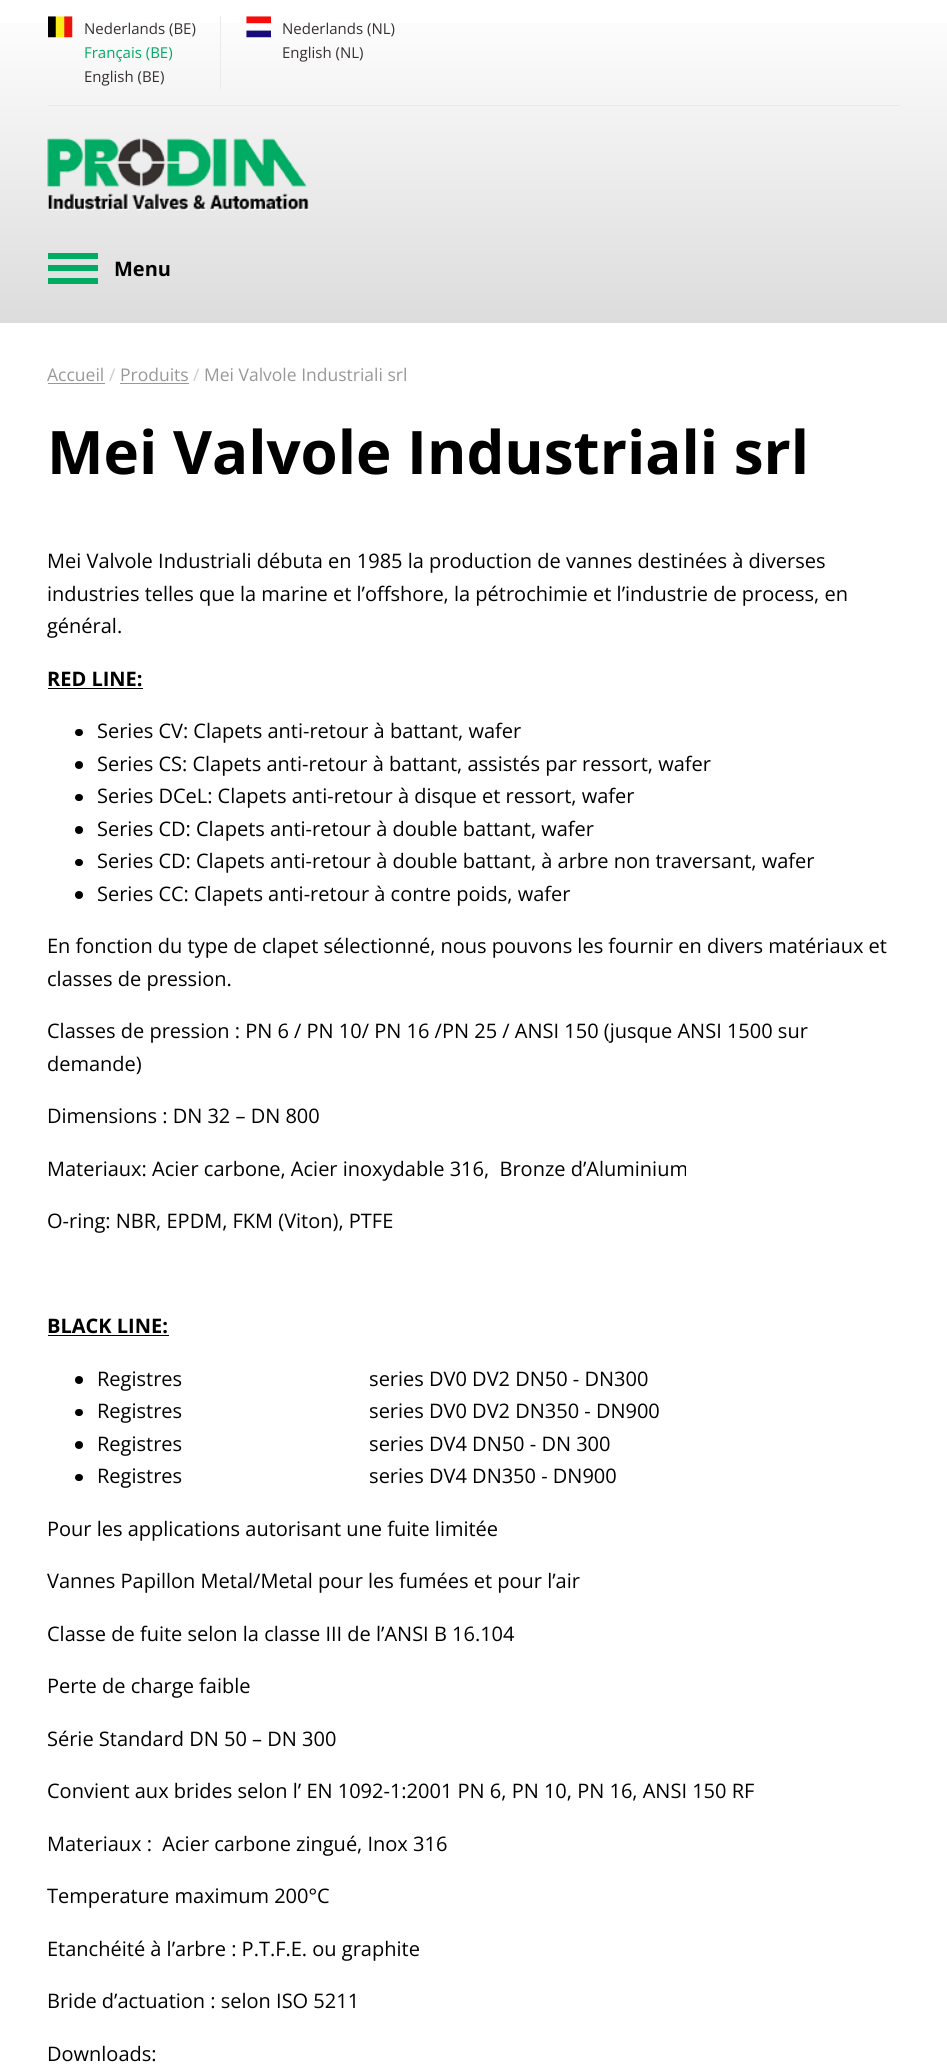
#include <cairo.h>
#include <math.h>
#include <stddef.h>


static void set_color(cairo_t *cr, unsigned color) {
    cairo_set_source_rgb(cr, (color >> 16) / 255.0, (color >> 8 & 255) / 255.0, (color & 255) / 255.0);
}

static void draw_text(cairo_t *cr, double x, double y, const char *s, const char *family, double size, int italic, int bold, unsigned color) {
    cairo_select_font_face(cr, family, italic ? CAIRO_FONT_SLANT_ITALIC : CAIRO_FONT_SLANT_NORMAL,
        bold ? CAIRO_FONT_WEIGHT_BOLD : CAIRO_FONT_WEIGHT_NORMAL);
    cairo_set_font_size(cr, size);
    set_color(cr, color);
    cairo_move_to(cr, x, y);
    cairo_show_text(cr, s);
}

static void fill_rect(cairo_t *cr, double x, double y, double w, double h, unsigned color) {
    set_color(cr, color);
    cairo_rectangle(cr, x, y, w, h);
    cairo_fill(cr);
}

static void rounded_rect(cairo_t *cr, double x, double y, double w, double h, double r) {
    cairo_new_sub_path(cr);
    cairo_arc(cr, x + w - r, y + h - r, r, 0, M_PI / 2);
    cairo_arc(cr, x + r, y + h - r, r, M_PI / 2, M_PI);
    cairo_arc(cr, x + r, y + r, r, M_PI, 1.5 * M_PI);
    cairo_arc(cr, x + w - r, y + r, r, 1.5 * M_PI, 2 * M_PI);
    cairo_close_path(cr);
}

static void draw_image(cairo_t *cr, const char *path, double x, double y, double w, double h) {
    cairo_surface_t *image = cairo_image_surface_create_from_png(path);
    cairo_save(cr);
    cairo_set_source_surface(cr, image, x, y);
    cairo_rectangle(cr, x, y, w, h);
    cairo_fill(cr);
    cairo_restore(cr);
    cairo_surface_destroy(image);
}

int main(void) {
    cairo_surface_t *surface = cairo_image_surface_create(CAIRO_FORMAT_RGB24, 947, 2068);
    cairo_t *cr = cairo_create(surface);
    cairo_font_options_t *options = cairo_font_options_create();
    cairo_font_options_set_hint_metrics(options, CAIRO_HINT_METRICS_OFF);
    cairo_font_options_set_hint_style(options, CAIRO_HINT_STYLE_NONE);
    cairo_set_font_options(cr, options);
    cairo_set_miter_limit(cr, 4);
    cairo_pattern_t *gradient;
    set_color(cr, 0xFFFFFF);
    cairo_paint(cr);
    gradient = cairo_pattern_create_linear(474, 0, 474, 323);
    cairo_pattern_add_color_stop_rgba(gradient, 0, 1, 1, 1, 1);
    cairo_pattern_add_color_stop_rgba(gradient, 1, 0.863, 0.863, 0.863, 1);
    cairo_set_source(cr, gradient);
    cairo_pattern_destroy(gradient);
    cairo_rectangle(cr, 0, 23, 947, 300);
    cairo_fill(cr);
    fill_rect(cr, 48, 105, 852, 1, 0xEAEAEA);
    draw_image(cr, "assets/img1.png", 48, 16, 25, 22);
    fill_rect(cr, 220, 16, 1, 73, 0xEAEAEA);
    draw_text(cr, 84, 34, "Nederlands (BE)", "Open Sans", 15, 0, 0, 0x36302F);
    draw_text(cr, 84, 58, "Français (BE)", "Open Sans", 15, 0, 0, 0x00AB63);
    draw_text(cr, 84, 82, "English (BE)", "Open Sans", 15, 0, 0, 0x36302F);
    draw_image(cr, "assets/img2.png", 246, 16, 25, 22);
    draw_text(cr, 282, 34, "Nederlands (NL)", "Open Sans", 15, 0, 0, 0x36302F);
    draw_text(cr, 282, 58, "English (NL)", "Open Sans", 15, 0, 0, 0x36302F);
    draw_image(cr, "assets/img3.png", 47, 138, 263, 73);
    fill_rect(cr, 48, 253, 50, 6, 0x00AB63);
    fill_rect(cr, 48, 265, 50, 6, 0x00AB63);
    fill_rect(cr, 48, 278, 50, 6, 0x00AB63);
    draw_text(cr, 114, 276, "Menu", "Open Sans", 20, 0, 1, 0x000000);
    draw_text(cr, 47, 381, "Accueil", "Open Sans", 17.5, 0, 0, 0x9A9797);
    fill_rect(cr, 48, 383, 57, 1, 0x9A9797);
    draw_text(cr, 109, 381, "/", "Open Sans", 17.5, 0, 0, 0xCDCBCB);
    draw_text(cr, 120, 381, "Produits", "Open Sans", 17.5, 0, 0, 0x9A9797);
    fill_rect(cr, 120, 383, 69, 1, 0x9A9797);
    draw_text(cr, 193, 381, "/", "Open Sans", 17.5, 0, 0, 0xCDCBCB);
    draw_text(cr, 204, 381, "Mei Valvole Industriali srl", "Open Sans", 17.5, 0, 0, 0x9A9797);
    draw_text(cr, 47, 474, "Mei Valvole Industriali srl", "Open Sans", 60, 0, 1, 0x000000);
    draw_text(cr, 47, 568, "Mei Valvole Industriali débuta en 1985 la production de vannes destinées à diverses", "Open Sans", 20, 0, 0, 0x000000);
    draw_text(cr, 47, 601, "industries telles que la marine et l’offshore, la pétrochimie et l’industrie de process, en", "Open Sans", 20, 0, 0, 0x000000);
    draw_text(cr, 47, 633, "général.", "Open Sans", 20, 0, 0, 0x000000);
    draw_text(cr, 47, 686, "RED LINE:", "Open Sans", 20, 0, 1, 0x000000);
    fill_rect(cr, 48, 688, 95, 1, 0x000000);
    rounded_rect(cr, 75, 729, 8, 7, 3.5);
    cairo_fill(cr);
    draw_text(cr, 97, 738, "Series CV: Clapets anti-retour à battant, wafer", "Open Sans", 20, 0, 0, 0x000000);
    cairo_new_path(cr);
    cairo_arc(cr, 79, 765, 4, 0, 2 * M_PI);
    cairo_fill(cr);
    draw_text(cr, 97, 771, "Series CS: Clapets anti-retour à battant, assistés par ressort, wafer", "Open Sans", 20, 0, 0, 0x000000);
    rounded_rect(cr, 75, 794, 8, 7, 3.5);
    cairo_fill(cr);
    draw_text(cr, 97, 803, "Series DCeL: Clapets anti-retour à disque et ressort, wafer", "Open Sans", 20, 0, 0, 0x000000);
    cairo_new_path(cr);
    cairo_arc(cr, 79, 830, 4, 0, 2 * M_PI);
    cairo_fill(cr);
    draw_text(cr, 97, 836, "Series CD: Clapets anti-retour à double battant, wafer", "Open Sans", 20, 0, 0, 0x000000);
    rounded_rect(cr, 75, 859, 8, 7, 3.5);
    cairo_fill(cr);
    draw_text(cr, 97, 868, "Series CD: Clapets anti-retour à double battant, à arbre non traversant, wafer", "Open Sans", 20, 0, 0, 0x000000);
    cairo_new_path(cr);
    cairo_arc(cr, 79, 895, 4, 0, 2 * M_PI);
    cairo_fill(cr);
    draw_text(cr, 97, 901, "Series CC: Clapets anti-retour à contre poids, wafer", "Open Sans", 20, 0, 0, 0x000000);
    draw_text(cr, 47, 953, "En fonction du type de clapet sélectionné, nous pouvons les fournir en divers matériaux et", "Open Sans", 20, 0, 0, 0x000000);
    draw_text(cr, 47, 986, "classes de pression.", "Open Sans", 20, 0, 0, 0x000000);
    draw_text(cr, 47, 1038, "Classes de pression : PN 6 / PN 10/ PN 16 /PN 25 / ANSI 150 (jusque ANSI 1500 sur", "Open Sans", 20, 0, 0, 0x000000);
    draw_text(cr, 47, 1071, "demande)", "Open Sans", 20, 0, 0, 0x000000);
    draw_text(cr, 47, 1123, "Dimensions : DN 32 – DN 800", "Open Sans", 20, 0, 0, 0x000000);
    draw_text(cr, 47, 1176, "Materiaux: Acier carbone, Acier inoxydable 316,  Bronze d’Aluminium", "Open Sans", 20, 0, 0, 0x000000);
    draw_text(cr, 47, 1228, "O-ring: NBR, EPDM, FKM (Viton), PTFE", "Open Sans", 20, 0, 0, 0x000000);
    draw_text(cr, 47, 1333, "BLACK LINE:", "Open Sans", 20, 0, 1, 0x000000);
    fill_rect(cr, 48, 1335, 121, 1, 0x000000);
    cairo_new_path(cr);
    cairo_arc(cr, 79, 1380, 4, 0, 2 * M_PI);
    cairo_fill(cr);
    draw_text(cr, 97, 1386, "Registres                                    series DV0 DV2 DN50 - DN300", "Open Sans", 20, 0, 0, 0x000000);
    rounded_rect(cr, 75, 1409, 8, 7, 3.5);
    cairo_fill(cr);
    draw_text(cr, 97, 1418, "Registres                                    series DV0 DV2 DN350 - DN900", "Open Sans", 20, 0, 0, 0x000000);
    cairo_new_path(cr);
    cairo_arc(cr, 79, 1445, 4, 0, 2 * M_PI);
    cairo_fill(cr);
    draw_text(cr, 97, 1451, "Registres                                    series DV4 DN50 - DN 300", "Open Sans", 20, 0, 0, 0x000000);
    rounded_rect(cr, 75, 1474, 8, 7, 3.5);
    cairo_fill(cr);
    draw_text(cr, 97, 1483, "Registres                                    series DV4 DN350 - DN900", "Open Sans", 20, 0, 0, 0x000000);
    draw_text(cr, 47, 1536, "Pour les applications autorisant une fuite limitée", "Open Sans", 20, 0, 0, 0x000000);
    draw_text(cr, 47, 1588, "Vannes Papillon Metal/Metal pour les fumées et pour l’air", "Open Sans", 20, 0, 0, 0x000000);
    draw_text(cr, 47, 1641, "Classe de fuite selon la classe III de l’ANSI B 16.104", "Open Sans", 20, 0, 0, 0x000000);
    draw_text(cr, 47, 1693, "Perte de charge faible", "Open Sans", 20, 0, 0, 0x000000);
    draw_text(cr, 47, 1746, "Série Standard DN 50 – DN 300", "Open Sans", 20, 0, 0, 0x000000);
    draw_text(cr, 47, 1798, "Convient aux brides selon l’ EN 1092-1:2001 PN 6, PN 10, PN 16, ANSI 150 RF", "Open Sans", 20, 0, 0, 0x000000);
    draw_text(cr, 47, 1851, "Materiaux :  Acier carbone zingué, Inox 316", "Open Sans", 20, 0, 0, 0x000000);
    draw_text(cr, 47, 1903, "Temperature maximum 200°C", "Open Sans", 20, 0, 0, 0x000000);
    draw_text(cr, 47, 1956, "Etanchéité à l’arbre : P.T.F.E. ou graphite", "Open Sans", 20, 0, 0, 0x000000);
    draw_text(cr, 47, 2008, "Bride d’actuation : selon ISO 5211", "Open Sans", 20, 0, 0, 0x000000);
    draw_text(cr, 47, 2061, "Downloads:", "Open Sans", 20, 0, 0, 0x000000);
    cairo_surface_write_to_png(surface, "output.png");
    cairo_font_options_destroy(options);
    cairo_destroy(cr);
    cairo_surface_destroy(surface);
    return 0;
}
